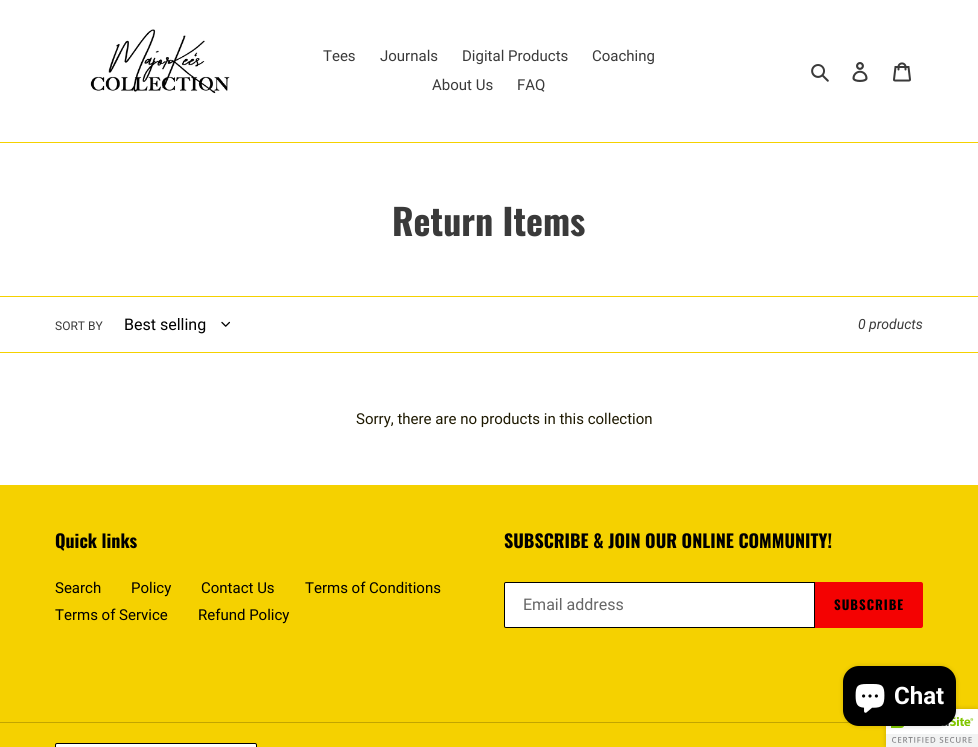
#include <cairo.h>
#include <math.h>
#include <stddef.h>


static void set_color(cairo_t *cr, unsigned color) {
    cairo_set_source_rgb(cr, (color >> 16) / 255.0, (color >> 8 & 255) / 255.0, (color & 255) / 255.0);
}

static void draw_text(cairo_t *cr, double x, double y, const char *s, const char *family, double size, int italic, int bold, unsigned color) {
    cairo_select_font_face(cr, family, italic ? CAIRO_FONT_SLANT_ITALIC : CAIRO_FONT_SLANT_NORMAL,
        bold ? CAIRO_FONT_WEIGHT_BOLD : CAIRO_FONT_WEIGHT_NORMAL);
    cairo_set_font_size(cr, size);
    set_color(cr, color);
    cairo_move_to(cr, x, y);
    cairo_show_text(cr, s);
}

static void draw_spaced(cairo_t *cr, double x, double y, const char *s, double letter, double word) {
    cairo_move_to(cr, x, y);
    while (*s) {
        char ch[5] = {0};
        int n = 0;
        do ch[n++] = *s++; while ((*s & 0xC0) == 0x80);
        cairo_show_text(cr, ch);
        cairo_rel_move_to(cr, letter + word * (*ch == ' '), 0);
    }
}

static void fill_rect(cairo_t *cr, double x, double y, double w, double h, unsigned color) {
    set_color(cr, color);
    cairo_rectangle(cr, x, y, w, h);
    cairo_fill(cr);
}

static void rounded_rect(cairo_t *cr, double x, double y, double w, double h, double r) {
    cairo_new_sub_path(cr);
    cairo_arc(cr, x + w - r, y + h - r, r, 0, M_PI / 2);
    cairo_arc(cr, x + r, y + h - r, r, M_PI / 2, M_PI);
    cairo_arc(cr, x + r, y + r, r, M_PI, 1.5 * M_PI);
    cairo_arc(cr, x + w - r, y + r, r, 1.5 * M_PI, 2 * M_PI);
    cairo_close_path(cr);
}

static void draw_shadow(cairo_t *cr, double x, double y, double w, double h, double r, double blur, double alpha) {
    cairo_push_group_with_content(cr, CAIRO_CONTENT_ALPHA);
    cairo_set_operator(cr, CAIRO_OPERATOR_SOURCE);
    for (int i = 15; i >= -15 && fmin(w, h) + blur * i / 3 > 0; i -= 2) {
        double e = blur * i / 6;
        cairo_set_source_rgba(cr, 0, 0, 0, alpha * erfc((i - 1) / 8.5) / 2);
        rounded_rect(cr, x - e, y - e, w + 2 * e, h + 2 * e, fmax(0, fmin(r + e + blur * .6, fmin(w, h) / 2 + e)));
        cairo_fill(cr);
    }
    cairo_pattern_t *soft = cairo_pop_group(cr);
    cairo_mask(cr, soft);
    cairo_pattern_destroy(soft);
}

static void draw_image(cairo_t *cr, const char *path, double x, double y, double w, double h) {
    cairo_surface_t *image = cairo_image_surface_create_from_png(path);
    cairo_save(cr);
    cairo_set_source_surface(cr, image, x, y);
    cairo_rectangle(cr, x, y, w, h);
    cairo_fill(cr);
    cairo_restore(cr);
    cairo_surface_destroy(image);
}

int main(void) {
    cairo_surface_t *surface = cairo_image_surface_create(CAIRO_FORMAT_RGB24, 978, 747);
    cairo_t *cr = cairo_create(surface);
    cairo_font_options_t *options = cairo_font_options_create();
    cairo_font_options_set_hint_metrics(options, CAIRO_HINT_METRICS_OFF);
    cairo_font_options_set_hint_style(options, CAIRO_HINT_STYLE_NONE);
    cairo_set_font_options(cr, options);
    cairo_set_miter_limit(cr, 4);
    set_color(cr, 0xFFFFFF);
    cairo_paint(cr);
    fill_rect(cr, 0, 142, 978, 1, 0xF5D100);
    draw_image(cr, "assets/img1.png", 90, 29, 140, 65);
    draw_text(cr, 323, 61, "Tees", "Roboto", 15, 0, 0, 0x3A3A3A);
    draw_text(cr, 380, 61, "Journals", "Roboto", 15, 0, 0, 0x3A3A3A);
    draw_text(cr, 462, 61, "Digital Products", "Roboto", 15, 0, 0, 0x3A3A3A);
    draw_text(cr, 592, 61, "Coaching", "Roboto", 15, 0, 0, 0x3A3A3A);
    draw_text(cr, 432, 90, "About Us", "Roboto", 15, 0, 0, 0x3A3A3A);
    draw_text(cr, 517, 90, "FAQ", "Roboto", 15, 0, 0, 0x3A3A3A);
    draw_image(cr, "assets/img2.png", 811, 64, 18, 18);
    draw_image(cr, "assets/img3.png", 852, 62, 16, 20);
    draw_image(cr, "assets/img4.png", 893, 62, 18, 20);
    draw_text(cr, 392, 236, "Return Items", "Oswald", 36, 0, 1, 0x3A3A3A);
    fill_rect(cr, 0, 296, 978, 1, 0xF5D100);
    fill_rect(cr, 0, 352, 978, 1, 0xF5D100);
    draw_text(cr, 55, 330, "SORT BY", "Roboto", 12, 0, 0, 0x3A3A3A);
    draw_text(cr, 124, 330, "Best selling", "Roboto", 16, 0, 0, 0x000000);
    draw_image(cr, "assets/img5.png", 221, 321, 9, 6);
    draw_text(cr, 858, 329, "0 products", "Roboto", 14, 1, 0, 0x3A3A3A);
    draw_text(cr, 356, 424, "Sorry, there are no products in this collection", "Roboto", 15, 0, 0, 0x1E1901);
    fill_rect(cr, 0, 485, 978, 262, 0xF5D100);
    draw_text(cr, 55, 548, "Quick links", "Oswald", 18, 0, 1, 0x000000);
    draw_text(cr, 55, 593, "Search", "Roboto", 15, 0, 0, 0x000000);
    draw_text(cr, 131, 593, "Policy", "Roboto", 15, 0, 0, 0x000000);
    draw_text(cr, 201, 593, "Contact Us", "Roboto", 15, 0, 0, 0x000000);
    draw_text(cr, 305, 593, "Terms of Conditions", "Roboto", 15, 0, 0, 0x000000);
    draw_text(cr, 55, 620, "Terms of Service", "Roboto", 15, 0, 0, 0x000000);
    draw_text(cr, 198, 620, "Refund Policy", "Roboto", 15, 0, 0, 0x000000);
    draw_text(cr, 504, 548, "SUBSCRIBE & JOIN OUR ONLINE COMMUNITY!", "Oswald", 18, 0, 1, 0x000000);
    set_color(cr, 0xFFFFFF);
    cairo_new_path(cr);
    cairo_move_to(cr, 506, 582.5);
    cairo_line_to(cr, 814.5, 582.5);
    cairo_line_to(cr, 814.5, 627.5);
    cairo_line_to(cr, 506, 627.5);
    cairo_curve_to(cr, 505, 627.5, 504.5, 627, 504.5, 626);
    cairo_line_to(cr, 504.5, 584);
    cairo_curve_to(cr, 504.5, 583, 505, 582.5, 506, 582.5);
    cairo_close_path(cr);
    cairo_fill_preserve(cr);
    set_color(cr, 0x000000);
    cairo_set_line_width(cr, 1);
    cairo_stroke(cr);
    draw_text(cr, 523, 610, "Email address", "Roboto", 16, 0, 0, 0x666666);
    set_color(cr, 0xF40202);
    cairo_new_path(cr);
    cairo_move_to(cr, 815, 582);
    cairo_line_to(cr, 921, 582);
    cairo_curve_to(cr, 922, 582, 923, 583, 923, 584);
    cairo_line_to(cr, 923, 626);
    cairo_curve_to(cr, 923, 627, 922, 628, 921, 628);
    cairo_line_to(cr, 815, 628);
    cairo_close_path(cr);
    cairo_fill(cr);
    cairo_select_font_face(cr, "Oswald", CAIRO_FONT_SLANT_NORMAL, CAIRO_FONT_WEIGHT_BOLD);
    cairo_set_font_size(cr, 13);
    set_color(cr, 0x000000);
    draw_spaced(cr, 834, 610, "SUBSCRIBE", 1, 0);
    fill_rect(cr, 0, 722, 850, 1, 0xC2A500);
    set_color(cr, 0xFFFFFF);
    rounded_rect(cr, 55.5, 743.5, 201, 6, 1.5);
    cairo_fill_preserve(cr);
    set_color(cr, 0x000000);
    cairo_stroke(cr);
    set_color(cr, 0x000000);
    draw_shadow(cr, 886, 709, 92, 38, 2, 2.5, 0.2);
    fill_rect(cr, 976, 709, 2, 2, 0xFFFFFF);
    draw_image(cr, "assets/img7.png", 886, 709, 92, 38);
    set_color(cr, 0x000000);
    draw_shadow(cr, 843, 666, 113, 60, 16, 2.5, 0.15);
    set_color(cr, 0x000000);
    rounded_rect(cr, 843, 666, 113, 60, 16);
    cairo_fill(cr);
    draw_image(cr, "assets/img6.png", 855, 684, 30, 29);
    draw_text(cr, 894, 704, "Chat", "Roboto", 24, 0, 1, 0xFFFFFF);
    cairo_surface_write_to_png(surface, "output.png");
    cairo_font_options_destroy(options);
    cairo_destroy(cr);
    cairo_surface_destroy(surface);
    return 0;
}
